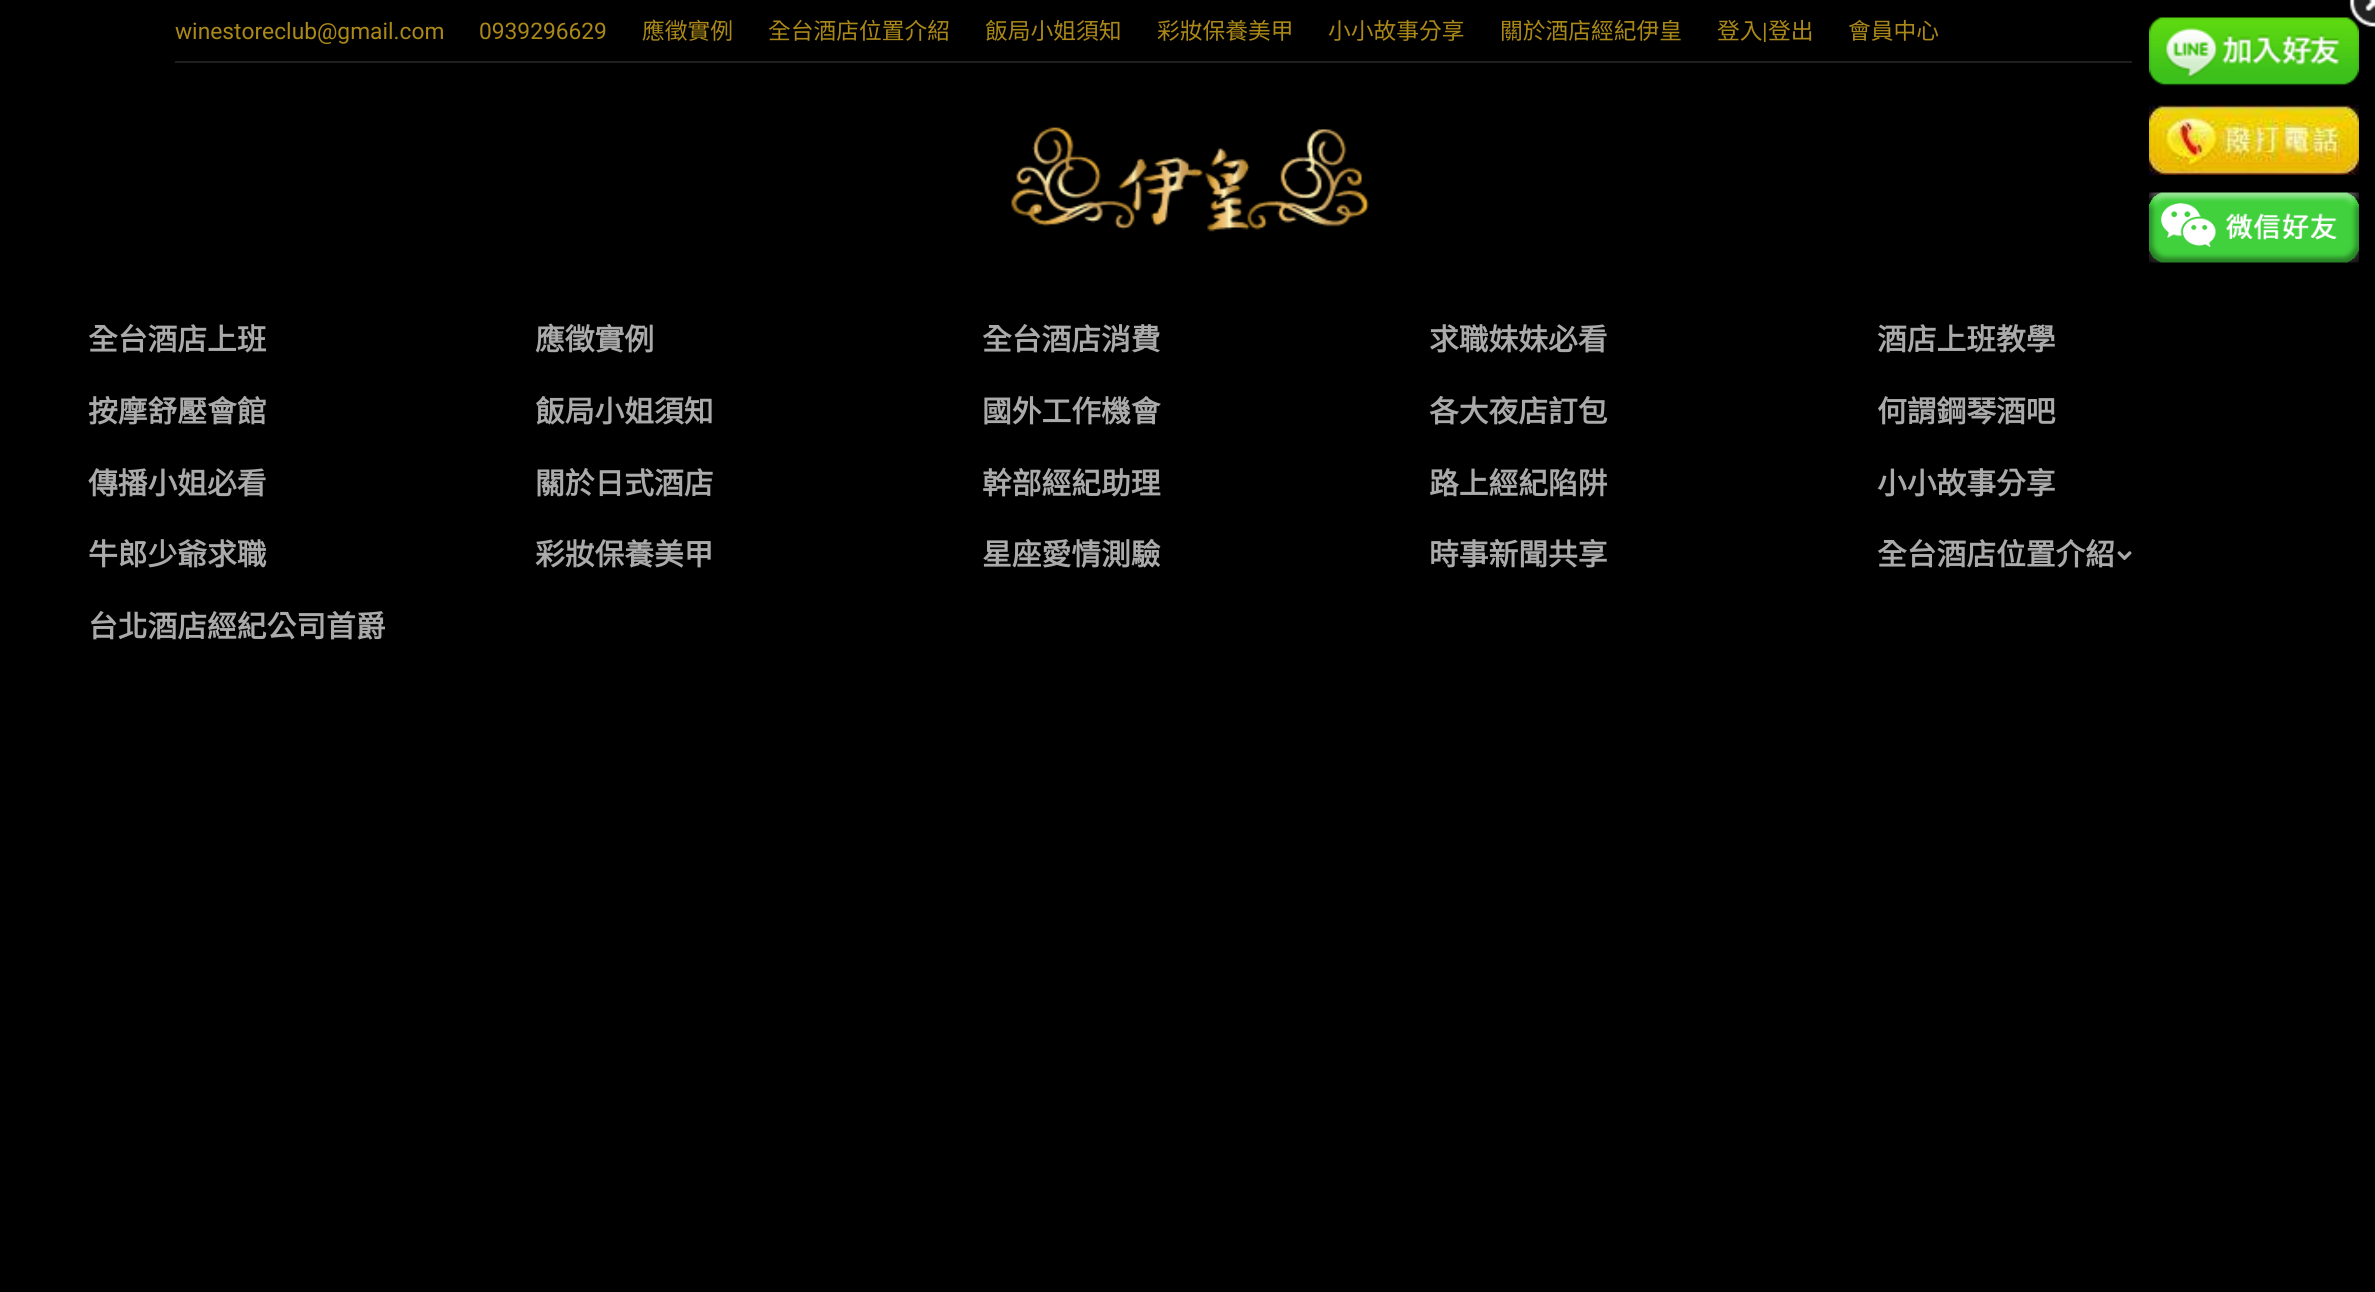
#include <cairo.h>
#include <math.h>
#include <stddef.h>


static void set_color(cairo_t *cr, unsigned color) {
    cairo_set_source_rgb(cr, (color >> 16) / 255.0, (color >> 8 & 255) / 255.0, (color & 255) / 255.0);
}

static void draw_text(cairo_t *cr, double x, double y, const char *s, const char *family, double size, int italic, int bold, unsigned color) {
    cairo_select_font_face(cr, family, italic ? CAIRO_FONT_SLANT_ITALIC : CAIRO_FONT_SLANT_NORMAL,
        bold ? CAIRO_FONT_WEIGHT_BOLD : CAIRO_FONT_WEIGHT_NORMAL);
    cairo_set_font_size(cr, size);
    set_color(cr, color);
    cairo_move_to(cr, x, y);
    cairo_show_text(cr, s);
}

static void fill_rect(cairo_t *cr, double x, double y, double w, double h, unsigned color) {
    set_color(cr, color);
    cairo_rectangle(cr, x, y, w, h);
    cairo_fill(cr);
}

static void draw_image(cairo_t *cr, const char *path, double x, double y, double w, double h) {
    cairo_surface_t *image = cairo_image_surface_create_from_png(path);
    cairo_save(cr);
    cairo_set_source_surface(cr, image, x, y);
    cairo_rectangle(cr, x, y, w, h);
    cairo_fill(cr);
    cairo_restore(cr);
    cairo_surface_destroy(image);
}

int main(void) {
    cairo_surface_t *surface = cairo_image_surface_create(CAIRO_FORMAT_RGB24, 2375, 1292);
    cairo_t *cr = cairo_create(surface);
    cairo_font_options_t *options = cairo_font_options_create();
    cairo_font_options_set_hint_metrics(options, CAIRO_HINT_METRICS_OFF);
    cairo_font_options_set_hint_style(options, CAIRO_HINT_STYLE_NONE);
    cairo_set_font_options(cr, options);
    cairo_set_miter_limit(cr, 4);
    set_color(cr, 0x000000);
    cairo_paint(cr);
    draw_text(cr, 175, 39, "winestoreclub@gmail.com", "Roboto", 22.75, 0, 0, 0xAA8819);
    draw_text(cr, 479, 39, "0939296629", "Roboto", 22.75, 0, 0, 0xAA8819);
    draw_text(cr, 642, 39, "應徵實例", "Noto Sans CJK TC", 22.75, 0, 0, 0xAA8819);
    draw_text(cr, 768, 39, "全台酒店位置介紹", "Noto Sans CJK TC", 22.75, 0, 0, 0xAA8819);
    draw_text(cr, 985, 39, "飯局小姐須知", "Noto Sans CJK TC", 22.75, 0, 0, 0xAA8819);
    draw_text(cr, 1157, 39, "彩妝保養美甲", "Noto Sans CJK TC", 22.75, 0, 0, 0xAA8819);
    draw_text(cr, 1328, 39, "小小故事分享", "Noto Sans CJK TC", 22.75, 0, 0, 0xAA8819);
    draw_text(cr, 1500, 39, "關於酒店經紀伊皇", "Noto Sans CJK TC", 22.75, 0, 0, 0xAA8819);
    draw_text(cr, 1717, 39, "登入", "Noto Sans CJK TC", 22.75, 0, 0, 0xAA8819);
    draw_text(cr, 1762, 39, "|", "Roboto", 22.75, 0, 0, 0xAA8819);
    draw_text(cr, 1768, 39, "登出", "Noto Sans CJK TC", 22.75, 0, 0, 0xAA8819);
    draw_text(cr, 1848, 39, "會員中心", "Noto Sans CJK TC", 22.75, 0, 0, 0xAA8819);
    fill_rect(cr, 175, 61, 1957, 2, 0x1F1F1F);
    draw_image(cr, "assets/img1.png", 1011, 127, 358, 105);
    draw_text(cr, 88, 350, "全台酒店上班", "Noto Sans CJK TC", 29.75, 0, 1, 0xAAAAAA);
    draw_text(cr, 535, 350, "應徵實例", "Noto Sans CJK TC", 29.75, 0, 1, 0xAAAAAA);
    draw_text(cr, 982, 350, "全台酒店消費", "Noto Sans CJK TC", 29.75, 0, 1, 0xAAAAAA);
    draw_text(cr, 1429, 350, "求職妹妹必看", "Noto Sans CJK TC", 29.75, 0, 1, 0xAAAAAA);
    draw_text(cr, 1877, 350, "酒店上班教學", "Noto Sans CJK TC", 29.75, 0, 1, 0xAAAAAA);
    draw_text(cr, 88, 422, "按摩舒壓會館", "Noto Sans CJK TC", 29.75, 0, 1, 0xAAAAAA);
    draw_text(cr, 535, 422, "飯局小姐須知", "Noto Sans CJK TC", 29.75, 0, 1, 0xAAAAAA);
    draw_text(cr, 982, 422, "國外工作機會", "Noto Sans CJK TC", 29.75, 0, 1, 0xAAAAAA);
    draw_text(cr, 1429, 422, "各大夜店訂包", "Noto Sans CJK TC", 29.75, 0, 1, 0xAAAAAA);
    draw_text(cr, 1877, 422, "何謂鋼琴酒吧", "Noto Sans CJK TC", 29.75, 0, 1, 0xAAAAAA);
    draw_text(cr, 88, 494, "傳播小姐必看", "Noto Sans CJK TC", 29.75, 0, 1, 0xAAAAAA);
    draw_text(cr, 535, 494, "關於日式酒店", "Noto Sans CJK TC", 29.75, 0, 1, 0xAAAAAA);
    draw_text(cr, 982, 494, "幹部經紀助理", "Noto Sans CJK TC", 29.75, 0, 1, 0xAAAAAA);
    draw_text(cr, 1429, 494, "路上經紀陷阱", "Noto Sans CJK TC", 29.75, 0, 1, 0xAAAAAA);
    draw_text(cr, 1877, 494, "小小故事分享", "Noto Sans CJK TC", 29.75, 0, 1, 0xAAAAAA);
    draw_text(cr, 88, 565, "牛郎少爺求職", "Noto Sans CJK TC", 29.75, 0, 1, 0xAAAAAA);
    draw_text(cr, 535, 565, "彩妝保養美甲", "Noto Sans CJK TC", 29.75, 0, 1, 0xAAAAAA);
    draw_text(cr, 982, 565, "星座愛情測驗", "Noto Sans CJK TC", 29.75, 0, 1, 0xAAAAAA);
    draw_text(cr, 1429, 565, "時事新聞共享", "Noto Sans CJK TC", 29.75, 0, 1, 0xAAAAAA);
    draw_text(cr, 1877, 565, "全台酒店位置介紹", "Noto Sans CJK TC", 29.75, 0, 1, 0xAAAAAA);
    draw_image(cr, "assets/img2.png", 2117, 551, 15, 9);
    draw_text(cr, 88, 637, "台北酒店經紀公司首爵", "Noto Sans CJK TC", 29.75, 0, 1, 0xAAAAAA);
    draw_image(cr, "assets/img4.png", 2149, 17, 210, 69);
    draw_image(cr, "assets/img3.png", 2349, 0, 26, 28);
    draw_image(cr, "assets/img5.png", 2149, 105, 210, 70);
    draw_image(cr, "assets/img6.png", 2149, 192, 210, 71);
    cairo_surface_write_to_png(surface, "output.png");
    cairo_font_options_destroy(options);
    cairo_destroy(cr);
    cairo_surface_destroy(surface);
    return 0;
}
